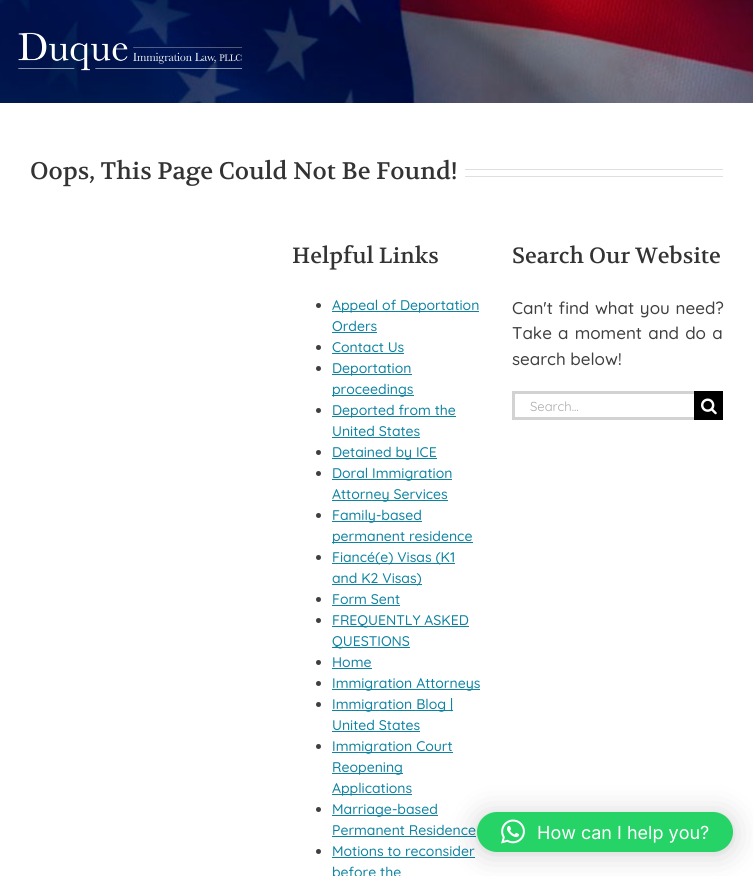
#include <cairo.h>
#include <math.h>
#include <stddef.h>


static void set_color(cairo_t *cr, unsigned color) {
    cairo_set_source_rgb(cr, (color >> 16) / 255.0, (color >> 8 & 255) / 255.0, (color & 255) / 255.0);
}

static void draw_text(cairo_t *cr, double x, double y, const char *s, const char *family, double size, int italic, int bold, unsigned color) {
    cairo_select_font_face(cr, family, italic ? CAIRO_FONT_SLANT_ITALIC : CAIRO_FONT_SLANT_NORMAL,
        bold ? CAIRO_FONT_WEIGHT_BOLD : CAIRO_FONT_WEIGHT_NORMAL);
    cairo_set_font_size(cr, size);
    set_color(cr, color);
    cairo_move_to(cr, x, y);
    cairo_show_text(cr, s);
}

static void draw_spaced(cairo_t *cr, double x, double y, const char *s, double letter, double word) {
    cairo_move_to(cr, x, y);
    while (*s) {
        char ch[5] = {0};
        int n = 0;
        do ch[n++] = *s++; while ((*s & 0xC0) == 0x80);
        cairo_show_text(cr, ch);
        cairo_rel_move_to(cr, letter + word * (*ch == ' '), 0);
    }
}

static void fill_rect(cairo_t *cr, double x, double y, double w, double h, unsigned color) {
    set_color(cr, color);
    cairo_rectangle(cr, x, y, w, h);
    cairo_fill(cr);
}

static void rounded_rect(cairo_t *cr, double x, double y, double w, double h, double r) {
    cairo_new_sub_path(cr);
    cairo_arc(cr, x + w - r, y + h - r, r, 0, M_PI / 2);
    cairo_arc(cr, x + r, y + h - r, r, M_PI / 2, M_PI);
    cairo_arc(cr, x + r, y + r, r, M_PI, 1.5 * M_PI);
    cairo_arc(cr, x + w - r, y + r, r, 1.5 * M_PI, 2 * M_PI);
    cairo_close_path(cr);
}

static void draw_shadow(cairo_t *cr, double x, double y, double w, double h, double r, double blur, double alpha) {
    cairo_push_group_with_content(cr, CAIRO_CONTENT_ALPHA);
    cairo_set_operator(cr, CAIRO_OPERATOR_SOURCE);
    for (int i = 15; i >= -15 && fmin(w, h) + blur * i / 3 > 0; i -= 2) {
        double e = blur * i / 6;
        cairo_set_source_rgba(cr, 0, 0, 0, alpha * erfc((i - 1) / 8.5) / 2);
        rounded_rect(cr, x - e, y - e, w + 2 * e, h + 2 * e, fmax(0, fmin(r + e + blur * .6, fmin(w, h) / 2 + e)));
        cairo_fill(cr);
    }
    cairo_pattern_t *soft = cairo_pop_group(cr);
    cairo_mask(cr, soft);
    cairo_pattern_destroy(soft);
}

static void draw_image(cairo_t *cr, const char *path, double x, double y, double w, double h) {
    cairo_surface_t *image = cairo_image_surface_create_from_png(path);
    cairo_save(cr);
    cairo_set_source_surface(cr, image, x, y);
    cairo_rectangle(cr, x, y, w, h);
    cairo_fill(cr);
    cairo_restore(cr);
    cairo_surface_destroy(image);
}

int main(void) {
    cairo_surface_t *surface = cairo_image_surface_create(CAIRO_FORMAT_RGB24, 753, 876);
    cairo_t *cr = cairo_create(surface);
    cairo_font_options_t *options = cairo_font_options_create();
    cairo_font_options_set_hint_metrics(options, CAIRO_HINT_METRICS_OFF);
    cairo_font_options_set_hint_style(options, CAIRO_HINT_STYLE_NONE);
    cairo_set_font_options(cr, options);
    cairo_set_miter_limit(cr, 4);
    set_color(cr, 0xFFFFFF);
    cairo_paint(cr);
    draw_image(cr, "assets/img1.png", 0, 0, 753, 103);
    draw_image(cr, "assets/img2.png", 18, 32, 225, 39);
    draw_text(cr, 30, 179, "Oops, This Page Could Not Be Found!", "Volkhov", 24, 0, 0, 0x333333);
    fill_rect(cr, 465, 169, 258, 1, 0xE0DEDE);
    fill_rect(cr, 465, 176, 258, 1, 0xE0DEDE);
    draw_text(cr, 292, 263, "Helpful Links", "Volkhov", 22, 0, 0, 0x333333);
    set_color(cr, 0x3F3F3F);
    cairo_new_path(cr);
    cairo_arc(cr, 318.5, 305.5, 2.5, 0, 2 * M_PI);
    cairo_fill(cr);
    fill_rect(cr, 332, 311, 147, 1, 0x0D82A1);
    draw_text(cr, 332, 310, "Appeal of Deportation", "Quicksand Medium", 14, 0, 0, 0x0D82A1);
    draw_text(cr, 332, 331, "Orders", "Quicksand Medium", 14, 0, 0, 0x0D82A1);
    fill_rect(cr, 332, 332, 45, 1, 0x0D82A1);
    set_color(cr, 0x3F3F3F);
    cairo_new_path(cr);
    cairo_arc(cr, 318.5, 347.5, 2.5, 0, 2 * M_PI);
    cairo_fill(cr);
    draw_text(cr, 332, 352, "Contact Us", "Quicksand Medium", 14, 0, 0, 0x0D82A1);
    fill_rect(cr, 332, 353, 72, 1, 0x0D82A1);
    set_color(cr, 0x3F3F3F);
    cairo_new_path(cr);
    cairo_arc(cr, 318.5, 368.5, 2.5, 0, 2 * M_PI);
    cairo_fill(cr);
    fill_rect(cr, 332, 374, 80, 1, 0x0D82A1);
    draw_text(cr, 332, 373, "Deportation", "Quicksand Medium", 14, 0, 0, 0x0D82A1);
    fill_rect(cr, 332, 395, 82, 1, 0x0D82A1);
    draw_text(cr, 332, 394, "proceedings", "Quicksand Medium", 14, 0, 0, 0x0D82A1);
    set_color(cr, 0x3F3F3F);
    cairo_new_path(cr);
    cairo_arc(cr, 318.5, 410.5, 2.5, 0, 2 * M_PI);
    cairo_fill(cr);
    fill_rect(cr, 332, 416, 124, 1, 0x0D82A1);
    draw_text(cr, 332, 415, "Deported from the", "Quicksand Medium", 14, 0, 0, 0x0D82A1);
    draw_text(cr, 332, 436, "United States", "Quicksand Medium", 14, 0, 0, 0x0D82A1);
    fill_rect(cr, 332, 437, 88, 1, 0x0D82A1);
    set_color(cr, 0x3F3F3F);
    cairo_new_path(cr);
    cairo_arc(cr, 318.5, 452.5, 2.5, 0, 2 * M_PI);
    cairo_fill(cr);
    fill_rect(cr, 332, 458, 105, 1, 0x0D82A1);
    draw_text(cr, 332, 457, "Detained by ICE", "Quicksand Medium", 14, 0, 0, 0x0D82A1);
    set_color(cr, 0x3F3F3F);
    cairo_new_path(cr);
    cairo_arc(cr, 318.5, 473.5, 2.5, 0, 2 * M_PI);
    cairo_fill(cr);
    fill_rect(cr, 332, 479, 120, 1, 0x0D82A1);
    draw_text(cr, 332, 478, "Doral Immigration", "Quicksand Medium", 14, 0, 0, 0x0D82A1);
    fill_rect(cr, 332, 500, 116, 1, 0x0D82A1);
    draw_text(cr, 332, 499, "Attorney Services", "Quicksand Medium", 14, 0, 0, 0x0D82A1);
    set_color(cr, 0x3F3F3F);
    cairo_new_path(cr);
    cairo_arc(cr, 318.5, 515.5, 2.5, 0, 2 * M_PI);
    cairo_fill(cr);
    fill_rect(cr, 332, 521, 90, 1, 0x0D82A1);
    draw_text(cr, 332, 520, "Family-based", "Quicksand Medium", 14, 0, 0, 0x0D82A1);
    fill_rect(cr, 332, 542, 141, 1, 0x0D82A1);
    draw_text(cr, 332, 541, "permanent residence", "Quicksand Medium", 14, 0, 0, 0x0D82A1);
    set_color(cr, 0x3F3F3F);
    cairo_new_path(cr);
    cairo_arc(cr, 318.5, 557.5, 2.5, 0, 2 * M_PI);
    cairo_fill(cr);
    fill_rect(cr, 332, 563, 123, 1, 0x0D82A1);
    draw_text(cr, 332, 562, "Fiancé(e) Visas (K1", "Quicksand Medium", 14, 0, 0, 0x0D82A1);
    fill_rect(cr, 332, 584, 90, 1, 0x0D82A1);
    draw_text(cr, 332, 583, "and K2 Visas)", "Quicksand Medium", 14, 0, 0, 0x0D82A1);
    set_color(cr, 0x3F3F3F);
    cairo_new_path(cr);
    cairo_arc(cr, 318.5, 599.5, 2.5, 0, 2 * M_PI);
    cairo_fill(cr);
    draw_text(cr, 332, 604, "Form Sent", "Quicksand Medium", 14, 0, 0, 0x0D82A1);
    fill_rect(cr, 332, 605, 68, 1, 0x0D82A1);
    set_color(cr, 0x3F3F3F);
    cairo_new_path(cr);
    cairo_arc(cr, 318.5, 620.5, 2.5, 0, 2 * M_PI);
    cairo_fill(cr);
    fill_rect(cr, 332, 626, 137, 1, 0x0D82A1);
    draw_text(cr, 332, 625, "FREQUENTLY ASKED", "Quicksand Medium", 14, 0, 0, 0x0D82A1);
    fill_rect(cr, 332, 647, 78, 1, 0x0D82A1);
    draw_text(cr, 332, 646, "QUESTIONS", "Quicksand Medium", 14, 0, 0, 0x0D82A1);
    set_color(cr, 0x3F3F3F);
    cairo_new_path(cr);
    cairo_arc(cr, 318.5, 662.5, 2.5, 0, 2 * M_PI);
    cairo_fill(cr);
    draw_text(cr, 332, 667, "Home", "Quicksand Medium", 14, 0, 0, 0x0D82A1);
    fill_rect(cr, 332, 668, 40, 1, 0x0D82A1);
    set_color(cr, 0x3F3F3F);
    cairo_new_path(cr);
    cairo_arc(cr, 318.5, 683.5, 2.5, 0, 2 * M_PI);
    cairo_fill(cr);
    fill_rect(cr, 332, 689, 148, 1, 0x0D82A1);
    draw_text(cr, 332, 688, "Immigration Attorneys", "Quicksand Medium", 14, 0, 0, 0x0D82A1);
    set_color(cr, 0x3F3F3F);
    cairo_new_path(cr);
    cairo_arc(cr, 318.5, 704.5, 2.5, 0, 2 * M_PI);
    cairo_fill(cr);
    fill_rect(cr, 332, 710, 121, 1, 0x0D82A1);
    draw_text(cr, 332, 709, "Immigration Blog |", "Quicksand Medium", 14, 0, 0, 0x0D82A1);
    draw_text(cr, 332, 730, "United States", "Quicksand Medium", 14, 0, 0, 0x0D82A1);
    fill_rect(cr, 332, 731, 88, 1, 0x0D82A1);
    set_color(cr, 0x3F3F3F);
    cairo_new_path(cr);
    cairo_arc(cr, 318.5, 746.5, 2.5, 0, 2 * M_PI);
    cairo_fill(cr);
    fill_rect(cr, 332, 752, 121, 1, 0x0D82A1);
    draw_text(cr, 332, 751, "Immigration Court", "Quicksand Medium", 14, 0, 0, 0x0D82A1);
    fill_rect(cr, 332, 773, 71, 1, 0x0D82A1);
    draw_text(cr, 332, 772, "Reopening", "Quicksand Medium", 14, 0, 0, 0x0D82A1);
    fill_rect(cr, 332, 794, 80, 1, 0x0D82A1);
    draw_text(cr, 332, 793, "Applications", "Quicksand Medium", 14, 0, 0, 0x0D82A1);
    set_color(cr, 0x3F3F3F);
    cairo_new_path(cr);
    cairo_arc(cr, 318.5, 809.5, 2.5, 0, 2 * M_PI);
    cairo_fill(cr);
    fill_rect(cr, 332, 815, 106, 1, 0x0D82A1);
    draw_text(cr, 332, 814, "Marriage-based", "Quicksand Medium", 14, 0, 0, 0x0D82A1);
    draw_text(cr, 332, 835, "Permanent Residence", "Quicksand Medium", 14, 0, 0, 0x0D82A1);
    fill_rect(cr, 332, 836, 144, 1, 0x0D82A1);
    set_color(cr, 0x3F3F3F);
    cairo_new_path(cr);
    cairo_arc(cr, 318.5, 851.5, 2.5, 0, 2 * M_PI);
    cairo_fill(cr);
    draw_text(cr, 332, 856, "Motions to reconsider", "Quicksand Medium", 14, 0, 0, 0x0D82A1);
    fill_rect(cr, 332, 857, 143, 1, 0x0D82A1);
    draw_text(cr, 332, 877, "before the", "Quicksand Medium", 14, 0, 0, 0x0D82A1);
    draw_text(cr, 512, 263, "Search Our Website", "Volkhov", 22, 0, 0, 0x333333);
    cairo_select_font_face(cr, "Quicksand Medium", CAIRO_FONT_SLANT_NORMAL, CAIRO_FONT_WEIGHT_NORMAL);
    cairo_set_font_size(cr, 17);
    set_color(cr, 0x3F3F3F);
    draw_spaced(cr, 512, 314, "Can't find what you need?", 0, 1);
    draw_spaced(cr, 512, 339, "Take a moment and do a", 0, 1.5);
    draw_text(cr, 512, 365, "search below!", "Quicksand Medium", 17, 0, 0, 0x3F3F3F);
    fill_rect(cr, 512, 391, 182, 3, 0xD2D2D2);
    fill_rect(cr, 512, 417, 182, 3, 0xD2D2D2);
    fill_rect(cr, 512, 391, 3, 29, 0xD2D2D2);
    draw_text(cr, 530, 411, "Search...", "Quicksand", 13, 0, 0, 0xAAA9A9);
    fill_rect(cr, 694, 391, 29, 29, 0x000000);
    draw_image(cr, "assets/img3.png", 701, 398, 16, 17);
    set_color(cr, 0x000000);
    draw_shadow(cr, 477, 814, 256, 40, 20, 16, 0.16);
    draw_shadow(cr, 477, 813, 256, 40, 20, 3, 0.06);
    set_color(cr, 0x25D366);
    rounded_rect(cr, 477, 812, 256, 40, 20);
    cairo_fill(cr);
    draw_image(cr, "assets/img4.png", 501, 819, 24, 25);
    draw_text(cr, 537, 839, "How can I help you?", "Inter", 18, 0, 0, 0xFFFFFF);
    cairo_surface_write_to_png(surface, "output.png");
    cairo_font_options_destroy(options);
    cairo_destroy(cr);
    cairo_surface_destroy(surface);
    return 0;
}
